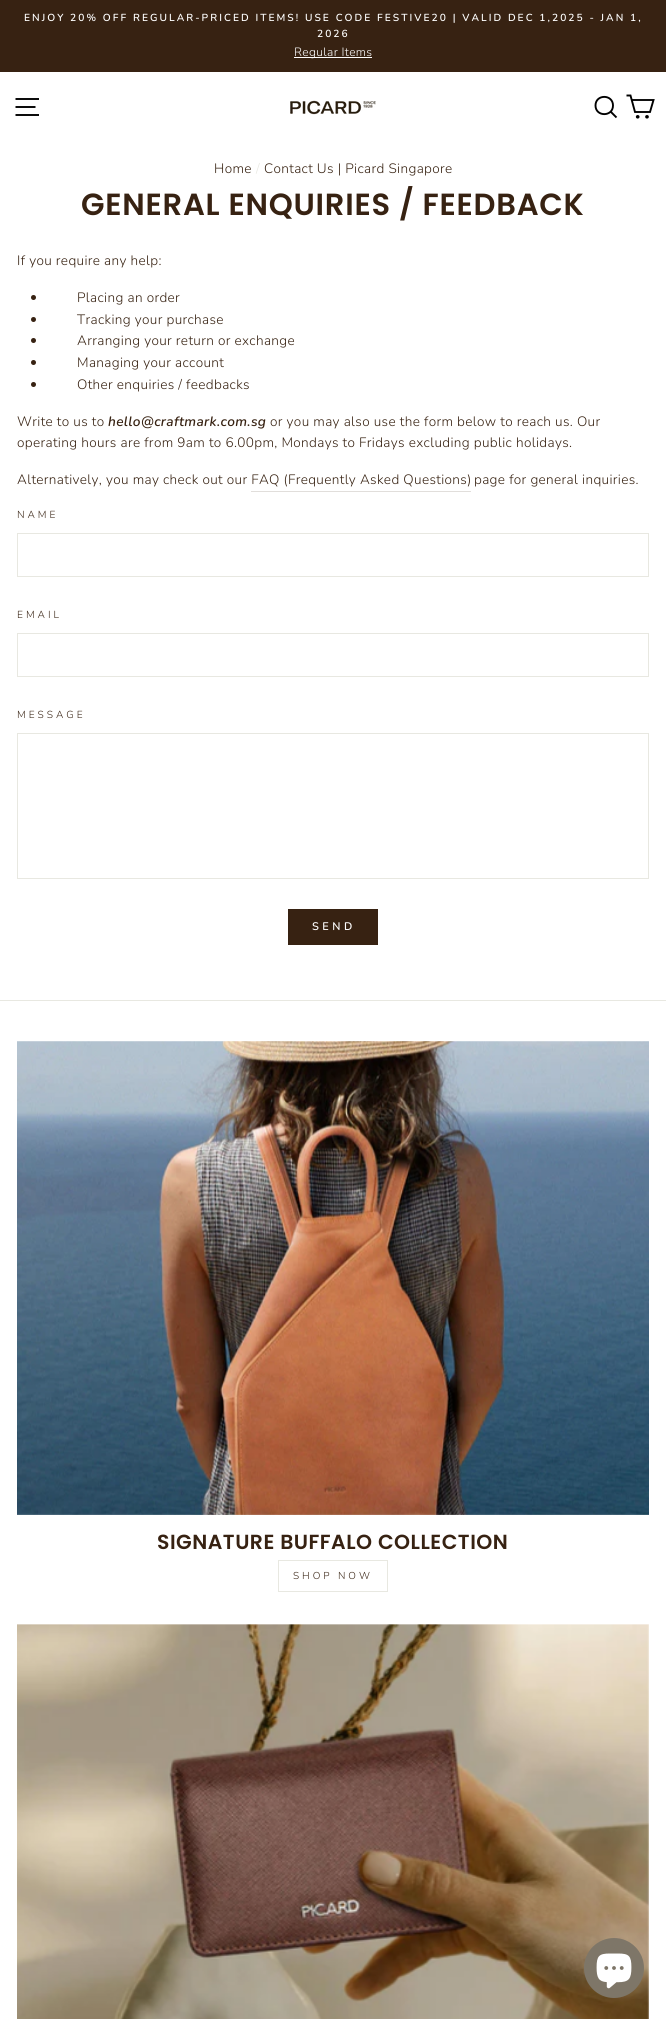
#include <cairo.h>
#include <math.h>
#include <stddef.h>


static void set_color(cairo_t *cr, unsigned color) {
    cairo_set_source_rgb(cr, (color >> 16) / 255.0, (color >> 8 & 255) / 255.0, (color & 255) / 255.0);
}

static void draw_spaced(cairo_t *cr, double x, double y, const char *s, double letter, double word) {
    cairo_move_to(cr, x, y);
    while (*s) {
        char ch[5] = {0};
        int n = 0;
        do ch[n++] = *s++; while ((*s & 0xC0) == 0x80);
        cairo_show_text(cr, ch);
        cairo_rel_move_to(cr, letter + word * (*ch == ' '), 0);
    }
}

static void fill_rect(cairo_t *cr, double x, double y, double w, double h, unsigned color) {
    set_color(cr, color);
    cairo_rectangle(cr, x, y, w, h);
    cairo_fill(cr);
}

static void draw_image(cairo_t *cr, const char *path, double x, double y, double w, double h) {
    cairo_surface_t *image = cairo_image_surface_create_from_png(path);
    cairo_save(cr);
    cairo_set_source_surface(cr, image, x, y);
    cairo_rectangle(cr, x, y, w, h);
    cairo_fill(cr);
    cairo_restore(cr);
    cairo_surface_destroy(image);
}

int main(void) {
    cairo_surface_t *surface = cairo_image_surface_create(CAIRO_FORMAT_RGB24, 666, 2019);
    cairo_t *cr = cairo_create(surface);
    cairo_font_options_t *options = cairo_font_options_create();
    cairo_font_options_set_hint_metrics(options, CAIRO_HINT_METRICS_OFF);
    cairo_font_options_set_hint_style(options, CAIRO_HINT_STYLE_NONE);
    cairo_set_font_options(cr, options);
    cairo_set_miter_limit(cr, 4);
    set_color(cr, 0xFFFFFF);
    cairo_paint(cr);
    fill_rect(cr, 0, 0, 666, 72, 0x372212);
    cairo_select_font_face(cr, "Nunito SemiBold", CAIRO_FONT_SLANT_NORMAL, CAIRO_FONT_WEIGHT_NORMAL);
    cairo_set_font_size(cr, 10.2);
    set_color(cr, 0xFFFFFF);
    draw_spaced(cr, 24, 21, "ENJOY 20% OFF REGULAR-PRICED ITEMS! USE CODE FESTIVE20 | VALID DEC 1,2025 - JAN 1,", 2.05, 0);
    draw_spaced(cr, 317, 37, "2026", 2.05, 0);
    fill_rect(cr, 294, 57, 78, 1, 0xFFFFFF);
    cairo_select_font_face(cr, "Nunito Light", CAIRO_FONT_SLANT_NORMAL, CAIRO_FONT_WEIGHT_NORMAL);
    cairo_set_font_size(cr, 12);
    draw_spaced(cr, 294, 56, "Regular Items", 0.35, 0);
    cairo_new_path(cr);
    cairo_move_to(cr, 15.5, 99);
    cairo_line_to(cr, 39, 99);
    cairo_move_to(cr, 15.5, 107);
    cairo_line_to(cr, 35.5, 107);
    cairo_move_to(cr, 15.5, 115);
    cairo_line_to(cr, 39, 115);
    set_color(cr, 0x000000);
    cairo_set_line_width(cr, 1.9);
    cairo_stroke(cr);
    draw_image(cr, "assets/img1.png", 290, 100, 86, 15);
    cairo_new_path(cr);
    cairo_move_to(cr, 613, 105.5);
    cairo_curve_to(cr, 613, 117, 595.5, 117, 595.5, 105.5);
    cairo_curve_to(cr, 595.5, 94, 613, 94, 613, 105.5);
    cairo_close_path(cr);
    cairo_move_to(cr, 616.5, 117.5);
    cairo_line_to(cr, 610.5, 111.5);
    cairo_move_to(cr, 631.5, 100);
    cairo_line_to(cr, 653.5, 100);
    cairo_line_to(cr, 650, 112);
    cairo_line_to(cr, 635, 112);
    cairo_line_to(cr, 630.5, 95.5);
    cairo_line_to(cr, 626.5, 95.5);
    cairo_stroke(cr);
    cairo_arc(cr, 637.7, 116.8, 0.9, 0, 2 * M_PI);
    cairo_stroke(cr);
    cairo_arc(cr, 647, 116.8, 0.9, 0, 2 * M_PI);
    cairo_stroke(cr);
    cairo_set_font_size(cr, 13.6);
    set_color(cr, 0x372212);
    draw_spaced(cr, 214, 173, "Home", 0.35, 0);
    set_color(cr, 0xE8E8E1);
    draw_spaced(cr, 256, 173, "/", 0.35, 0);
    set_color(cr, 0x372212);
    draw_spaced(cr, 264, 173, "Contact Us | Picard Singapore", 0.35, 0);
    cairo_select_font_face(cr, "Poppins SemiBold", CAIRO_FONT_SLANT_NORMAL, CAIRO_FONT_WEIGHT_NORMAL);
    cairo_set_font_size(cr, 30.6);
    draw_spaced(cr, 81, 215, "GENERAL ENQUIRIES / FEEDBACK", 0.75, 0);
    cairo_select_font_face(cr, "Nunito Light", CAIRO_FONT_SLANT_NORMAL, CAIRO_FONT_WEIGHT_NORMAL);
    cairo_set_font_size(cr, 13.6);
    draw_spaced(cr, 17, 265, "If you require any help:", 0.35, 0);
    cairo_new_path(cr);
    cairo_arc(cr, 33.5, 297.5, 2.5, 0, 2 * M_PI);
    cairo_fill(cr);
    draw_spaced(cr, 77, 302, "Placing an order", 0.35, 0);
    cairo_new_path(cr);
    cairo_arc(cr, 33.5, 319.5, 2.5, 0, 2 * M_PI);
    cairo_fill(cr);
    draw_spaced(cr, 77, 324, "Tracking your purchase", 0.35, 0);
    cairo_new_path(cr);
    cairo_arc(cr, 33.5, 340.5, 2.5, 0, 2 * M_PI);
    cairo_fill(cr);
    draw_spaced(cr, 77, 345, "Arranging your return or exchange", 0.35, 0);
    cairo_new_path(cr);
    cairo_arc(cr, 33.5, 362.5, 2.5, 0, 2 * M_PI);
    cairo_fill(cr);
    draw_spaced(cr, 77, 367, "Managing your account", 0.35, 0);
    cairo_new_path(cr);
    cairo_arc(cr, 33.5, 384.5, 2.5, 0, 2 * M_PI);
    cairo_fill(cr);
    draw_spaced(cr, 77, 389, "Other enquiries / feedbacks", 0.35, 0);
    draw_spaced(cr, 17, 426, "Write to us to", 0.35, 0);
    cairo_select_font_face(cr, "Nunito SemiBold", CAIRO_FONT_SLANT_ITALIC, CAIRO_FONT_WEIGHT_NORMAL);
    draw_spaced(cr, 108, 426, "hello@craftmark.com.sg", 0.35, 0);
    cairo_select_font_face(cr, "Nunito Light", CAIRO_FONT_SLANT_NORMAL, CAIRO_FONT_WEIGHT_NORMAL);
    draw_spaced(cr, 270, 426, "or you may also use the form below to reach us. Our", 0.35, 0);
    draw_spaced(cr, 17, 447, "operating hours are from 9am to 6.00pm, Mondays to Fridays excluding public holidays.", 0.35, 0);
    draw_spaced(cr, 17, 484, "Alternatively, you may check out our FAQ (Frequently Asked Questions)", 0.35, 0);
    draw_spaced(cr, 474, 484, "page for general inquiries.", 0.35, 0);
    fill_rect(cr, 251, 491, 220, 1, 0xE1DEDB);
    cairo_set_font_size(cr, 10.2);
    set_color(cr, 0x372212);
    draw_spaced(cr, 17, 518, "NAME", 3, 0);
    cairo_rectangle(cr, 17.5, 533.5, 631, 43);
    set_color(cr, 0xE8E8E1);
    cairo_set_line_width(cr, 1);
    cairo_stroke(cr);
    set_color(cr, 0x372212);
    draw_spaced(cr, 17, 618, "EMAIL", 3, 0);
    cairo_rectangle(cr, 17.5, 633.5, 631, 43);
    set_color(cr, 0xE8E8E1);
    cairo_stroke(cr);
    set_color(cr, 0x372212);
    draw_spaced(cr, 17, 718, "MESSAGE", 3, 0);
    cairo_rectangle(cr, 17.5, 733.5, 631, 145);
    set_color(cr, 0xE8E8E1);
    cairo_stroke(cr);
    fill_rect(cr, 288, 909, 90, 36, 0x372212);
    cairo_select_font_face(cr, "Nunito SemiBold", CAIRO_FONT_SLANT_NORMAL, CAIRO_FONT_WEIGHT_NORMAL);
    cairo_set_font_size(cr, 11);
    set_color(cr, 0xFFFFFF);
    draw_spaced(cr, 312, 930, "SEND", 3.5, 0);
    fill_rect(cr, 0, 1000, 666, 1, 0xE8E8E1);
    draw_image(cr, "assets/img2.png", 17, 1041, 632, 474);
    cairo_select_font_face(cr, "Poppins SemiBold", CAIRO_FONT_SLANT_NORMAL, CAIRO_FONT_WEIGHT_NORMAL);
    cairo_set_font_size(cr, 20.4);
    set_color(cr, 0x372212);
    draw_spaced(cr, 157, 1549, "SIGNATURE BUFFALO COLLECTION", 0.5, 0);
    cairo_rectangle(cr, 278.5, 1560.5, 109, 31);
    set_color(cr, 0xE8E8E1);
    cairo_stroke(cr);
    cairo_select_font_face(cr, "Nunito Light", CAIRO_FONT_SLANT_NORMAL, CAIRO_FONT_WEIGHT_NORMAL);
    cairo_set_font_size(cr, 10);
    set_color(cr, 0x372212);
    draw_spaced(cr, 293, 1579, "SHOP NOW", 3, 0);
    draw_image(cr, "assets/img3.png", 17, 1624, 632, 395);
    set_color(cr, 0x7E7668);
    cairo_arc(cr, 614, 1968, 30, 0, 2 * M_PI);
    cairo_fill(cr);
    draw_image(cr, "assets/img4.png", 596, 1953, 36, 36);
    cairo_surface_write_to_png(surface, "output.png");
    cairo_font_options_destroy(options);
    cairo_destroy(cr);
    cairo_surface_destroy(surface);
    return 0;
}
